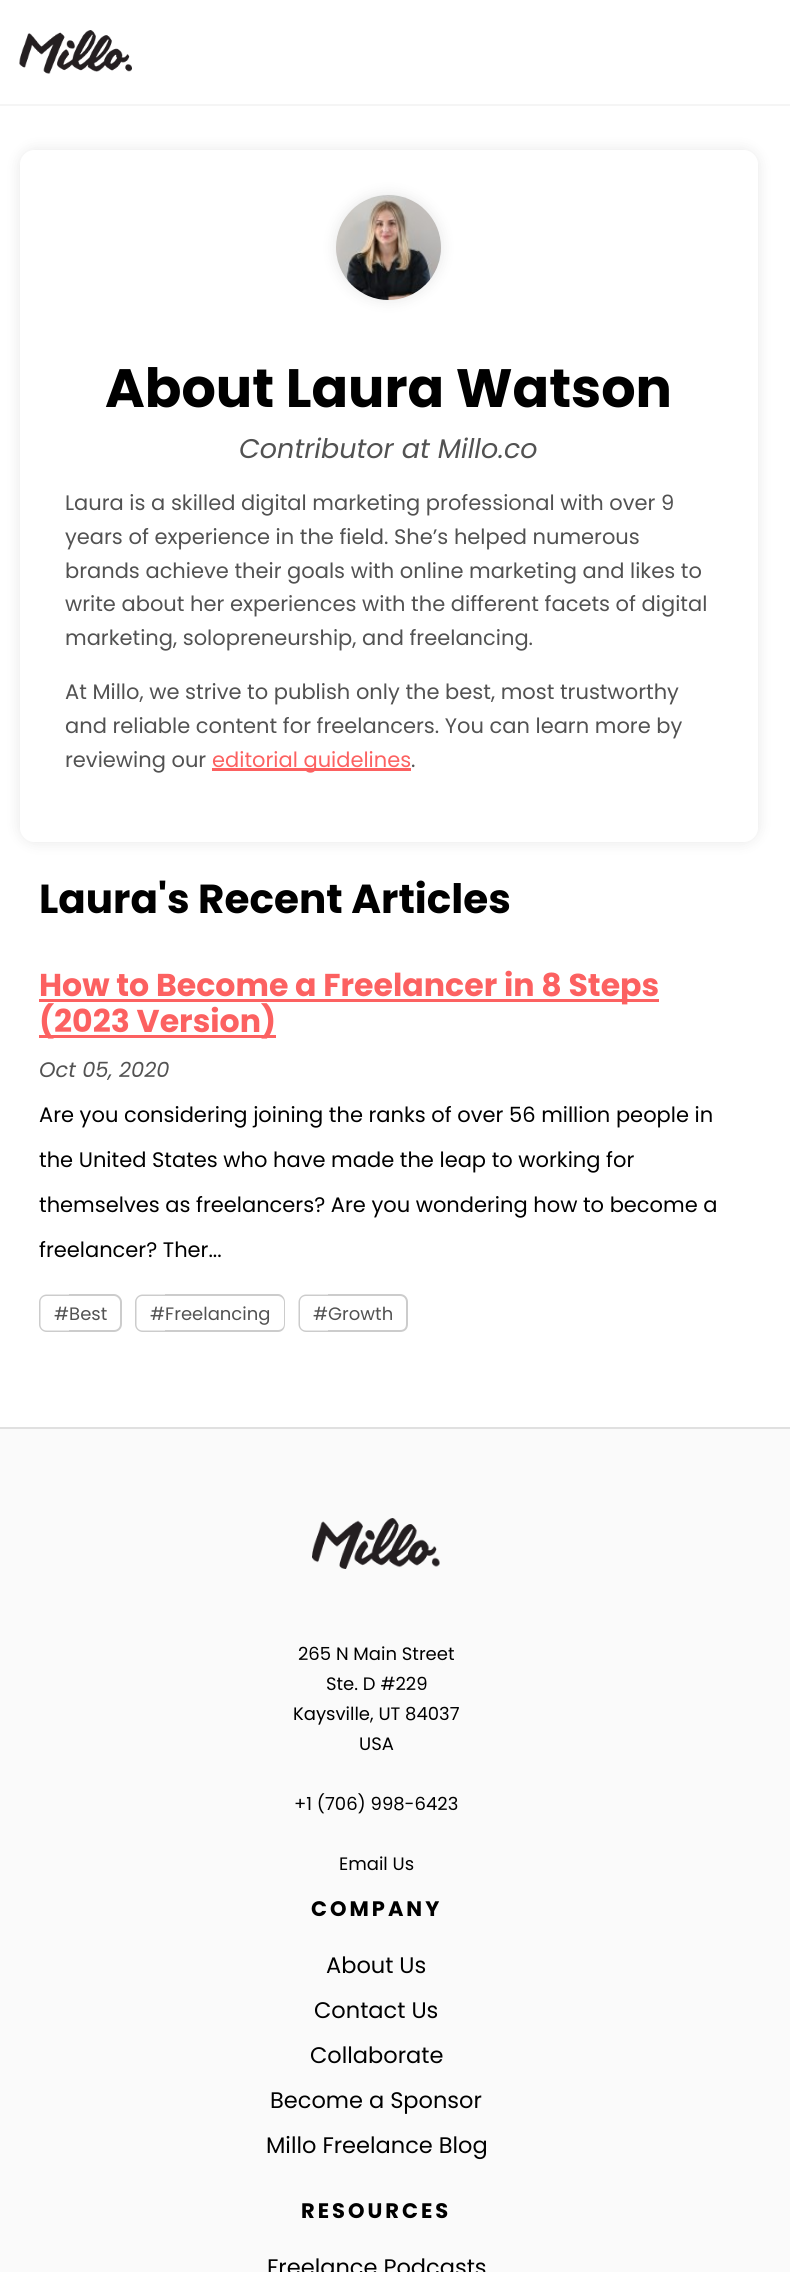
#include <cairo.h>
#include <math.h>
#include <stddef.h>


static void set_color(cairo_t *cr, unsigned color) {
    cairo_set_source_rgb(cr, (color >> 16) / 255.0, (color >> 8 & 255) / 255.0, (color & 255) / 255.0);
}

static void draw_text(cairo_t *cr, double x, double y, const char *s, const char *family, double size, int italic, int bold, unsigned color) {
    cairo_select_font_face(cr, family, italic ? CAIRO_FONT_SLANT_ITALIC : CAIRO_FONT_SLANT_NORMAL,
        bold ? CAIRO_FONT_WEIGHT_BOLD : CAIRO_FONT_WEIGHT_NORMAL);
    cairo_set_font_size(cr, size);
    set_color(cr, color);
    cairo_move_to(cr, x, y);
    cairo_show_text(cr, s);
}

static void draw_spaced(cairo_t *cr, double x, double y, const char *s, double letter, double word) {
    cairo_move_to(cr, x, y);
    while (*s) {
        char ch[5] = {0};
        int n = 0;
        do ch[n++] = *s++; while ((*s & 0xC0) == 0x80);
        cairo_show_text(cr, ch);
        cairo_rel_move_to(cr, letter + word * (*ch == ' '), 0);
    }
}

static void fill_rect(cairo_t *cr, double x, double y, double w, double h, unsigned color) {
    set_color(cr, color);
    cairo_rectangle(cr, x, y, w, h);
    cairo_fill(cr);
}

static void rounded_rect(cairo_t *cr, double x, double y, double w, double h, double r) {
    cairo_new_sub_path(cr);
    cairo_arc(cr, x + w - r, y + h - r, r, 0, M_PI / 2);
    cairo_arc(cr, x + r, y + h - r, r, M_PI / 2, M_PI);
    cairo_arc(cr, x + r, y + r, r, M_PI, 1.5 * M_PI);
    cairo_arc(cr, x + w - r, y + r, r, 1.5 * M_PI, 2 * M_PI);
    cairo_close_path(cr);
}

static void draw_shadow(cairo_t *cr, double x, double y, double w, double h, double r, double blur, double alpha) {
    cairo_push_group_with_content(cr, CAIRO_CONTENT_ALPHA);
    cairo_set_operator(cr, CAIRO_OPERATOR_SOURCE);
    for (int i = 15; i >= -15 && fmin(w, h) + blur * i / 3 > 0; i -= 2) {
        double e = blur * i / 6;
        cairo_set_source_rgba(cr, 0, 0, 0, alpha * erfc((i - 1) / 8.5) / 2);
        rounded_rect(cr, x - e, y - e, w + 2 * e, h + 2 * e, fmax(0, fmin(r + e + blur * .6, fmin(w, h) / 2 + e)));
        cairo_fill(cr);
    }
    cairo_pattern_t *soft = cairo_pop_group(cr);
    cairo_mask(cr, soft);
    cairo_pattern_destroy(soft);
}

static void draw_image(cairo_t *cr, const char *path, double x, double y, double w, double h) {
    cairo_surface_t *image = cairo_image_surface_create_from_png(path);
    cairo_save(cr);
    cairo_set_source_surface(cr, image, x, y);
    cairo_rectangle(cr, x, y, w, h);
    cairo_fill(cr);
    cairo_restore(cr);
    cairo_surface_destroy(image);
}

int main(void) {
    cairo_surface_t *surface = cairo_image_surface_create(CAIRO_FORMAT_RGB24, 790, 2272);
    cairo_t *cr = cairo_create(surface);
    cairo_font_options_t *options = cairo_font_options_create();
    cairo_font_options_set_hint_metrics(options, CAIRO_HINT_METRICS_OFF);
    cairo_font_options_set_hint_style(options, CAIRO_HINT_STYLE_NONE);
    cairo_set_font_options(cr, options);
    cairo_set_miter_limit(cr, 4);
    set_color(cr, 0xFFFFFF);
    cairo_paint(cr);
    fill_rect(cr, 0, 104, 790, 2, 0xF5F5F5);
    draw_image(cr, "assets/img1.png", 19, 30, 113, 44);
    cairo_save(cr);
    cairo_set_fill_rule(cr, CAIRO_FILL_RULE_EVEN_ODD);
    cairo_new_path(cr);
    cairo_move_to(cr, 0, 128);
    cairo_line_to(cr, 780, 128);
    cairo_line_to(cr, 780, 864);
    cairo_line_to(cr, 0, 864);
    cairo_close_path(cr);
    cairo_move_to(cr, 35, 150);
    cairo_line_to(cr, 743, 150);
    cairo_curve_to(cr, 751.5, 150, 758, 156.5, 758, 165);
    cairo_line_to(cr, 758, 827);
    cairo_curve_to(cr, 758, 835.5, 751.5, 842, 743, 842);
    cairo_line_to(cr, 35, 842);
    cairo_curve_to(cr, 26.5, 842, 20, 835.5, 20, 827);
    cairo_line_to(cr, 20, 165);
    cairo_curve_to(cr, 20, 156.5, 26.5, 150, 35, 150);
    cairo_close_path(cr);
    cairo_clip(cr);
    set_color(cr, 0x000000);
    draw_shadow(cr, 20, 150, 738, 692, 15, 7, 0.1);
    cairo_restore(cr);
    set_color(cr, 0x000000);
    draw_shadow(cr, 336, 195, 105, 105, 52.5, 7, 0.1);
    draw_image(cr, "assets/img2.png", 336, 195, 105, 105);
    draw_text(cr, 105, 407, "About Laura Watson", "Poppins", 54, 0, 1, 0x000000);
    draw_text(cr, 239, 458, "Contributor at Millo.co", "Poppins", 27, 1, 0, 0x525252);
    draw_text(cr, 65, 510, "Laura is a skilled digital marketing professional with over 9", "Poppins", 21, 0, 0, 0x525252);
    draw_text(cr, 65, 544, "years of experience in the field. She’s helped numerous", "Poppins", 21, 0, 0, 0x525252);
    draw_text(cr, 65, 578, "brands achieve their goals with online marketing and likes to", "Poppins", 21, 0, 0, 0x525252);
    draw_text(cr, 65, 611, "write about her experiences with the different facets of digital", "Poppins", 21, 0, 0, 0x525252);
    draw_text(cr, 65, 645, "marketing, solopreneurship, and freelancing.", "Poppins", 21, 0, 0, 0x525252);
    draw_text(cr, 65, 699, "At Millo, we strive to publish only the best, most trustworthy", "Poppins", 21, 0, 0, 0x525252);
    draw_text(cr, 65, 733, "and reliable content for freelancers. You can learn more by", "Poppins", 21, 0, 0, 0x525252);
    draw_text(cr, 65, 767, "reviewing our", "Poppins", 21, 0, 0, 0x525252);
    fill_rect(cr, 212, 768, 199, 3, 0xFC6161);
    draw_text(cr, 212, 767, "editorial guidelines", "Poppins", 21, 0, 0, 0xFC6161);
    draw_text(cr, 411, 767, ".", "Poppins", 21, 0, 0, 0x525252);
    draw_text(cr, 39, 913, "Laura's Recent Articles", "Poppins", 40.5, 0, 1, 0x000000);
    fill_rect(cr, 39, 999, 620, 3, 0xFC6161);
    draw_text(cr, 39, 996, "How to Become a Freelancer in 8 Steps", "Poppins", 31.6, 0, 1, 0xFC6161);
    fill_rect(cr, 39, 1035, 237, 3, 0xFC6161);
    draw_text(cr, 39, 1032, "(2023 Version)", "Poppins", 31.6, 0, 1, 0xFC6161);
    draw_text(cr, 39, 1077, "Oct 05, 2020", "Poppins", 21, 1, 0, 0x525252);
    draw_text(cr, 39, 1122, "Are you considering joining the ranks of over 56 million people in", "Poppins", 21, 0, 0, 0x000000);
    draw_text(cr, 39, 1167, "the United States who have made the leap to working for", "Poppins", 21, 0, 0, 0x000000);
    draw_text(cr, 39, 1212, "themselves as freelancers? Are you wondering how to become a", "Poppins", 21, 0, 0, 0x000000);
    draw_text(cr, 39, 1257, "freelancer? Ther...", "Poppins", 21, 0, 0, 0x000000);
    set_color(cr, 0xCCCCCC);
    cairo_set_fill_rule(cr, CAIRO_FILL_RULE_EVEN_ODD);
    cairo_new_path(cr);
    cairo_move_to(cr, 46.5, 1294.5);
    cairo_line_to(cr, 69, 1294.5);
    cairo_line_to(cr, 69, 1332);
    cairo_line_to(cr, 46.5, 1332);
    cairo_curve_to(cr, 42.5, 1332, 39, 1328.5, 39, 1324.5);
    cairo_line_to(cr, 39, 1302);
    cairo_curve_to(cr, 39, 1298, 42.5, 1294.5, 46.5, 1294.5);
    cairo_close_path(cr);
    cairo_move_to(cr, 46.5, 1296);
    cairo_line_to(cr, 69, 1296);
    cairo_line_to(cr, 69, 1330.5);
    cairo_line_to(cr, 46.5, 1330.5);
    cairo_curve_to(cr, 43, 1330.5, 40.5, 1328, 40.5, 1324.5);
    cairo_line_to(cr, 40.5, 1302);
    cairo_curve_to(cr, 40.5, 1298.5, 43, 1296, 46.5, 1296);
    cairo_close_path(cr);
    cairo_fill(cr);
    cairo_new_path(cr);
    cairo_move_to(cr, 69, 1294);
    cairo_line_to(cr, 114, 1294);
    cairo_curve_to(cr, 118, 1294, 122, 1298, 122, 1302);
    cairo_line_to(cr, 122, 1324);
    cairo_curve_to(cr, 122, 1329, 118, 1332, 114, 1332);
    cairo_line_to(cr, 69, 1332);
    cairo_close_path(cr);
    cairo_move_to(cr, 69, 1296);
    cairo_line_to(cr, 114, 1296);
    cairo_curve_to(cr, 117, 1296, 120, 1299, 120, 1302);
    cairo_line_to(cr, 120, 1324);
    cairo_curve_to(cr, 120, 1328, 117, 1330, 114, 1330);
    cairo_line_to(cr, 69, 1330);
    cairo_close_path(cr);
    cairo_fill(cr);
    draw_text(cr, 54, 1320, "#Best", "Poppins", 18, 0, 0, 0x525252);
    set_color(cr, 0xCCCCCC);
    cairo_new_path(cr);
    cairo_move_to(cr, 142.5, 1294.5);
    cairo_line_to(cr, 165, 1294.5);
    cairo_line_to(cr, 165, 1332);
    cairo_line_to(cr, 142.5, 1332);
    cairo_curve_to(cr, 138.5, 1332, 135, 1328.5, 135, 1324.5);
    cairo_line_to(cr, 135, 1302);
    cairo_curve_to(cr, 135, 1298, 138.5, 1294.5, 142.5, 1294.5);
    cairo_close_path(cr);
    cairo_move_to(cr, 142.5, 1296);
    cairo_line_to(cr, 165, 1296);
    cairo_line_to(cr, 165, 1330.5);
    cairo_line_to(cr, 142.5, 1330.5);
    cairo_curve_to(cr, 139, 1330.5, 136.5, 1328, 136.5, 1324.5);
    cairo_line_to(cr, 136.5, 1302);
    cairo_curve_to(cr, 136.5, 1298.5, 139, 1296, 142.5, 1296);
    cairo_close_path(cr);
    cairo_fill(cr);
    cairo_new_path(cr);
    cairo_move_to(cr, 165, 1294);
    cairo_line_to(cr, 278, 1294);
    cairo_curve_to(cr, 282, 1294, 285, 1298, 285, 1302);
    cairo_line_to(cr, 285, 1324);
    cairo_curve_to(cr, 285, 1329, 282, 1332, 278, 1332);
    cairo_line_to(cr, 165, 1332);
    cairo_close_path(cr);
    cairo_move_to(cr, 165, 1296);
    cairo_line_to(cr, 278, 1296);
    cairo_curve_to(cr, 281, 1296, 284, 1299, 284, 1302);
    cairo_line_to(cr, 284, 1324);
    cairo_curve_to(cr, 284, 1328, 281, 1330, 278, 1330);
    cairo_line_to(cr, 165, 1330);
    cairo_close_path(cr);
    cairo_fill(cr);
    draw_text(cr, 150, 1320, "#Freelancing", "Poppins", 18, 0, 0, 0x525252);
    set_color(cr, 0xCCCCCC);
    cairo_new_path(cr);
    cairo_move_to(cr, 306, 1294.5);
    cairo_line_to(cr, 328.5, 1294.5);
    cairo_line_to(cr, 328.5, 1332);
    cairo_line_to(cr, 306, 1332);
    cairo_curve_to(cr, 302, 1332, 298.5, 1328.5, 298.5, 1324.5);
    cairo_line_to(cr, 298.5, 1302);
    cairo_curve_to(cr, 298.5, 1298, 302, 1294.5, 306, 1294.5);
    cairo_close_path(cr);
    cairo_move_to(cr, 306, 1296);
    cairo_line_to(cr, 328.5, 1296);
    cairo_line_to(cr, 328.5, 1330.5);
    cairo_line_to(cr, 306, 1330.5);
    cairo_curve_to(cr, 302.5, 1330.5, 300, 1328, 300, 1324.5);
    cairo_line_to(cr, 300, 1302);
    cairo_curve_to(cr, 300, 1298.5, 302.5, 1296, 306, 1296);
    cairo_close_path(cr);
    cairo_fill(cr);
    cairo_new_path(cr);
    cairo_move_to(cr, 328, 1294);
    cairo_line_to(cr, 400, 1294);
    cairo_curve_to(cr, 405, 1294, 408, 1298, 408, 1302);
    cairo_line_to(cr, 408, 1324);
    cairo_curve_to(cr, 408, 1329, 405, 1332, 400, 1332);
    cairo_line_to(cr, 328, 1332);
    cairo_close_path(cr);
    cairo_move_to(cr, 328, 1296);
    cairo_line_to(cr, 400, 1296);
    cairo_curve_to(cr, 404, 1296, 406, 1299, 406, 1302);
    cairo_line_to(cr, 406, 1324);
    cairo_curve_to(cr, 406, 1328, 404, 1330, 400, 1330);
    cairo_line_to(cr, 328, 1330);
    cairo_close_path(cr);
    cairo_fill(cr);
    draw_text(cr, 313, 1320, "#Growth", "Poppins", 18, 0, 0, 0x525252);
    fill_rect(cr, 0, 1429, 790, 843, 0xFAFAFA);
    fill_rect(cr, 0, 1427, 790, 2, 0xE0E0E0);
    draw_image(cr, "assets/img3.png", 312, 1518, 128, 51);
    draw_text(cr, 298, 1660, "265 N Main Street", "Poppins", 18, 0, 0, 0x000000);
    draw_text(cr, 326, 1690, "Ste. D #229", "Poppins", 18, 0, 0, 0x000000);
    draw_text(cr, 293, 1720, "Kaysville, UT 84037", "Poppins", 18, 0, 0, 0x000000);
    draw_text(cr, 359, 1750, "USA", "Poppins", 18, 0, 0, 0x000000);
    draw_text(cr, 294, 1810, "+1 (706) 998-6423", "Poppins", 18, 0, 0, 0x000000);
    draw_text(cr, 339, 1870, "Email Us", "Poppins", 18, 0, 0, 0x000000);
    cairo_select_font_face(cr, "Poppins", CAIRO_FONT_SLANT_NORMAL, CAIRO_FONT_WEIGHT_BOLD);
    cairo_set_font_size(cr, 21);
    draw_spaced(cr, 311, 1916, "COMPANY", 3, 0);
    draw_text(cr, 326, 1973, "About Us", "Poppins", 22.5, 0, 0, 0x000000);
    draw_text(cr, 314, 2018, "Contact Us", "Poppins", 22.5, 0, 0, 0x000000);
    draw_text(cr, 310, 2063, "Collaborate", "Poppins", 22.5, 0, 0, 0x000000);
    draw_text(cr, 270, 2108, "Become a Sponsor", "Poppins", 22.5, 0, 0, 0x000000);
    draw_text(cr, 266, 2153, "Millo Freelance Blog", "Poppins", 22.5, 0, 0, 0x000000);
    cairo_select_font_face(cr, "Poppins", CAIRO_FONT_SLANT_NORMAL, CAIRO_FONT_WEIGHT_BOLD);
    cairo_set_font_size(cr, 21);
    draw_spaced(cr, 301, 2218, "RESOURCES", 3, 0);
    draw_text(cr, 267, 2275, "Freelance Podcasts", "Poppins", 22.5, 0, 0, 0x000000);
    cairo_surface_write_to_png(surface, "output.png");
    cairo_font_options_destroy(options);
    cairo_destroy(cr);
    cairo_surface_destroy(surface);
    return 0;
}
